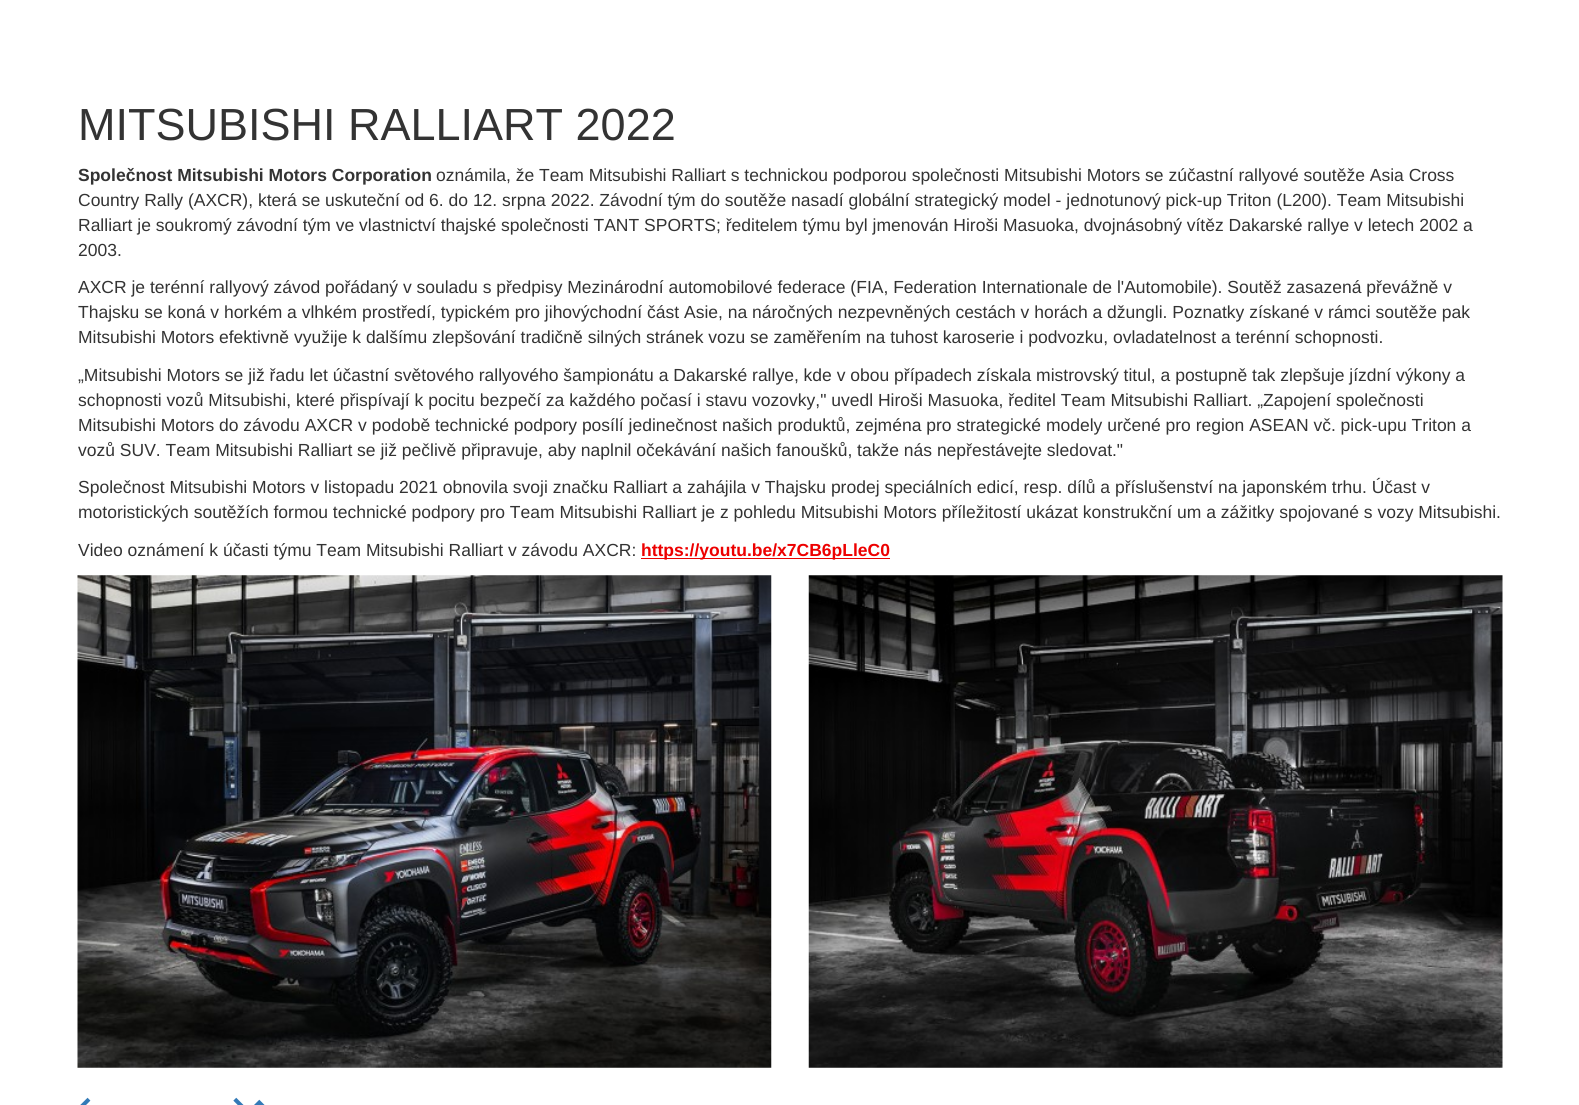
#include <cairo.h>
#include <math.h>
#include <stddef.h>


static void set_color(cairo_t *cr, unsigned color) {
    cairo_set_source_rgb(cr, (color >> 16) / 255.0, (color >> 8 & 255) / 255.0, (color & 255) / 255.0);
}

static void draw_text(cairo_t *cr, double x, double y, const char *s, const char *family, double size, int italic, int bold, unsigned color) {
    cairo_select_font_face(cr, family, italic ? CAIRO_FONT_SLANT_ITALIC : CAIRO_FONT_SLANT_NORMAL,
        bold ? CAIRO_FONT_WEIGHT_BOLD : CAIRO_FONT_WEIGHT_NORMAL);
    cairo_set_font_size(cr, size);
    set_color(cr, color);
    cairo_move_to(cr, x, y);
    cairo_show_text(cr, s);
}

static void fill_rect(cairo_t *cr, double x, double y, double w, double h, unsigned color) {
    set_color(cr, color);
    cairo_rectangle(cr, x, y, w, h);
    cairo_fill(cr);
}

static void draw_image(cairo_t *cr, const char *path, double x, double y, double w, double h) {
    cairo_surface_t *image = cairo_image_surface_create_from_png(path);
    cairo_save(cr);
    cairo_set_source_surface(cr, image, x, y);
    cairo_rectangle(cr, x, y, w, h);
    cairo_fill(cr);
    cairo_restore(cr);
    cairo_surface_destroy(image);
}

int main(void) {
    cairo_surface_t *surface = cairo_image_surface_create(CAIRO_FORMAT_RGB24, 1579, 1105);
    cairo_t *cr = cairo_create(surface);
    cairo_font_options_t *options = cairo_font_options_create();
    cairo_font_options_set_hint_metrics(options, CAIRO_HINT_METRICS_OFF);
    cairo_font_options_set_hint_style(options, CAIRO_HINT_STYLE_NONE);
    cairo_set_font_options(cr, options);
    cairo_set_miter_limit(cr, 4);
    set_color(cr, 0xFFFFFF);
    cairo_paint(cr);
    draw_text(cr, 78, 140, "MITSUBISHI RALLIART 2022", "Liberation Sans", 45, 0, 0, 0x333333);
    draw_text(cr, 78, 181, "Společnost Mitsubishi Motors Corporation", "Liberation Sans", 17.5, 0, 1, 0x333333);
    draw_text(cr, 436, 181, "oznámila, že Team Mitsubishi Ralliart s technickou podporou společnosti Mitsubishi Motors se zúčastní rallyové soutěže Asia Cross", "Liberation Sans", 17.5, 0, 0, 0x333333);
    draw_text(cr, 78, 206, "Country Rally (AXCR), která se uskuteční od 6. do 12. srpna 2022. Závodní tým do soutěže nasadí globální strategický model - jednotunový pick-up Triton (L200). Team Mitsubishi", "Liberation Sans", 17.5, 0, 0, 0x333333);
    draw_text(cr, 78, 231, "Ralliart je soukromý závodní tým ve vlastnictví thajské společnosti TANT SPORTS; ředitelem týmu byl jmenován Hiroši Masuoka, dvojnásobný vítěz Dakarské rallye v letech 2002 a", "Liberation Sans", 17.5, 0, 0, 0x333333);
    draw_text(cr, 78, 256, "2003.", "Liberation Sans", 17.5, 0, 0, 0x333333);
    draw_text(cr, 78, 293, "AXCR je terénní rallyový závod pořádaný v souladu s předpisy Mezinárodní automobilové federace (FIA, Federation Internationale de l'Automobile). Soutěž zasazená převážně v", "Liberation Sans", 17.5, 0, 0, 0x333333);
    draw_text(cr, 78, 318, "Thajsku se koná v horkém a vlhkém prostředí, typickém pro jihovýchodní část Asie, na náročných nezpevněných cestách v horách a džungli. Poznatky získané v rámci soutěže pak", "Liberation Sans", 17.5, 0, 0, 0x333333);
    draw_text(cr, 78, 343, "Mitsubishi Motors efektivně využije k dalšímu zlepšování tradičně silných stránek vozu se zaměřením na tuhost karoserie i podvozku, ovladatelnost a terénní schopnosti.", "Liberation Sans", 17.5, 0, 0, 0x333333);
    draw_text(cr, 78, 381, "„Mitsubishi Motors se již řadu let účastní světového rallyového šampionátu a Dakarské rallye, kde v obou případech získala mistrovský titul, a postupně tak zlepšuje jízdní výkony a", "Liberation Sans", 17.5, 0, 0, 0x333333);
    draw_text(cr, 78, 406, "schopnosti vozů Mitsubishi, které přispívají k pocitu bezpečí za každého počasí i stavu vozovky,\" uvedl Hiroši Masuoka, ředitel Team Mitsubishi Ralliart. „Zapojení společnosti", "Liberation Sans", 17.5, 0, 0, 0x333333);
    draw_text(cr, 78, 431, "Mitsubishi Motors do závodu AXCR v podobě technické podpory posílí jedinečnost našich produktů, zejména pro strategické modely určené pro region ASEAN vč. pick-upu Triton a", "Liberation Sans", 17.5, 0, 0, 0x333333);
    draw_text(cr, 78, 456, "vozů SUV. Team Mitsubishi Ralliart se již pečlivě připravuje, aby naplnil očekávání našich fanoušků, takže nás nepřestávejte sledovat.\"", "Liberation Sans", 17.5, 0, 0, 0x333333);
    draw_text(cr, 78, 493, "Společnost Mitsubishi Motors v listopadu 2021 obnovila svoji značku Ralliart a zahájila v Thajsku prodej speciálních edicí, resp. dílů a příslušenství na japonském trhu. Účast v", "Liberation Sans", 17.5, 0, 0, 0x333333);
    draw_text(cr, 78, 518, "motoristických soutěžích formou technické podpory pro Team Mitsubishi Ralliart je z pohledu Mitsubishi Motors příležitostí ukázat konstrukční um a zážitky spojované s vozy Mitsubishi.", "Liberation Sans", 17.5, 0, 0, 0x333333);
    draw_text(cr, 78, 556, "Video oznámení k účasti týmu Team Mitsubishi Ralliart v závodu AXCR:", "Liberation Sans", 17.5, 0, 0, 0x333333);
    fill_rect(cr, 641, 558, 249, 1, 0xED0000);
    draw_text(cr, 641, 556, "https://youtu.be/x7CB6pLleC0", "Liberation Sans", 17.5, 0, 1, 0xED0000);
    draw_image(cr, "assets/img1.png", 77, 575, 695, 493);
    draw_image(cr, "assets/img2.png", 808, 575, 695, 493);
    draw_image(cr, "assets/img3.png", 80, 1097, 11, 8);
    draw_image(cr, "assets/img4.png", 233, 1097, 11, 8);
    draw_image(cr, "assets/img5.png", 254, 1099, 11, 6);
    cairo_surface_write_to_png(surface, "output.png");
    cairo_font_options_destroy(options);
    cairo_destroy(cr);
    cairo_surface_destroy(surface);
    return 0;
}
